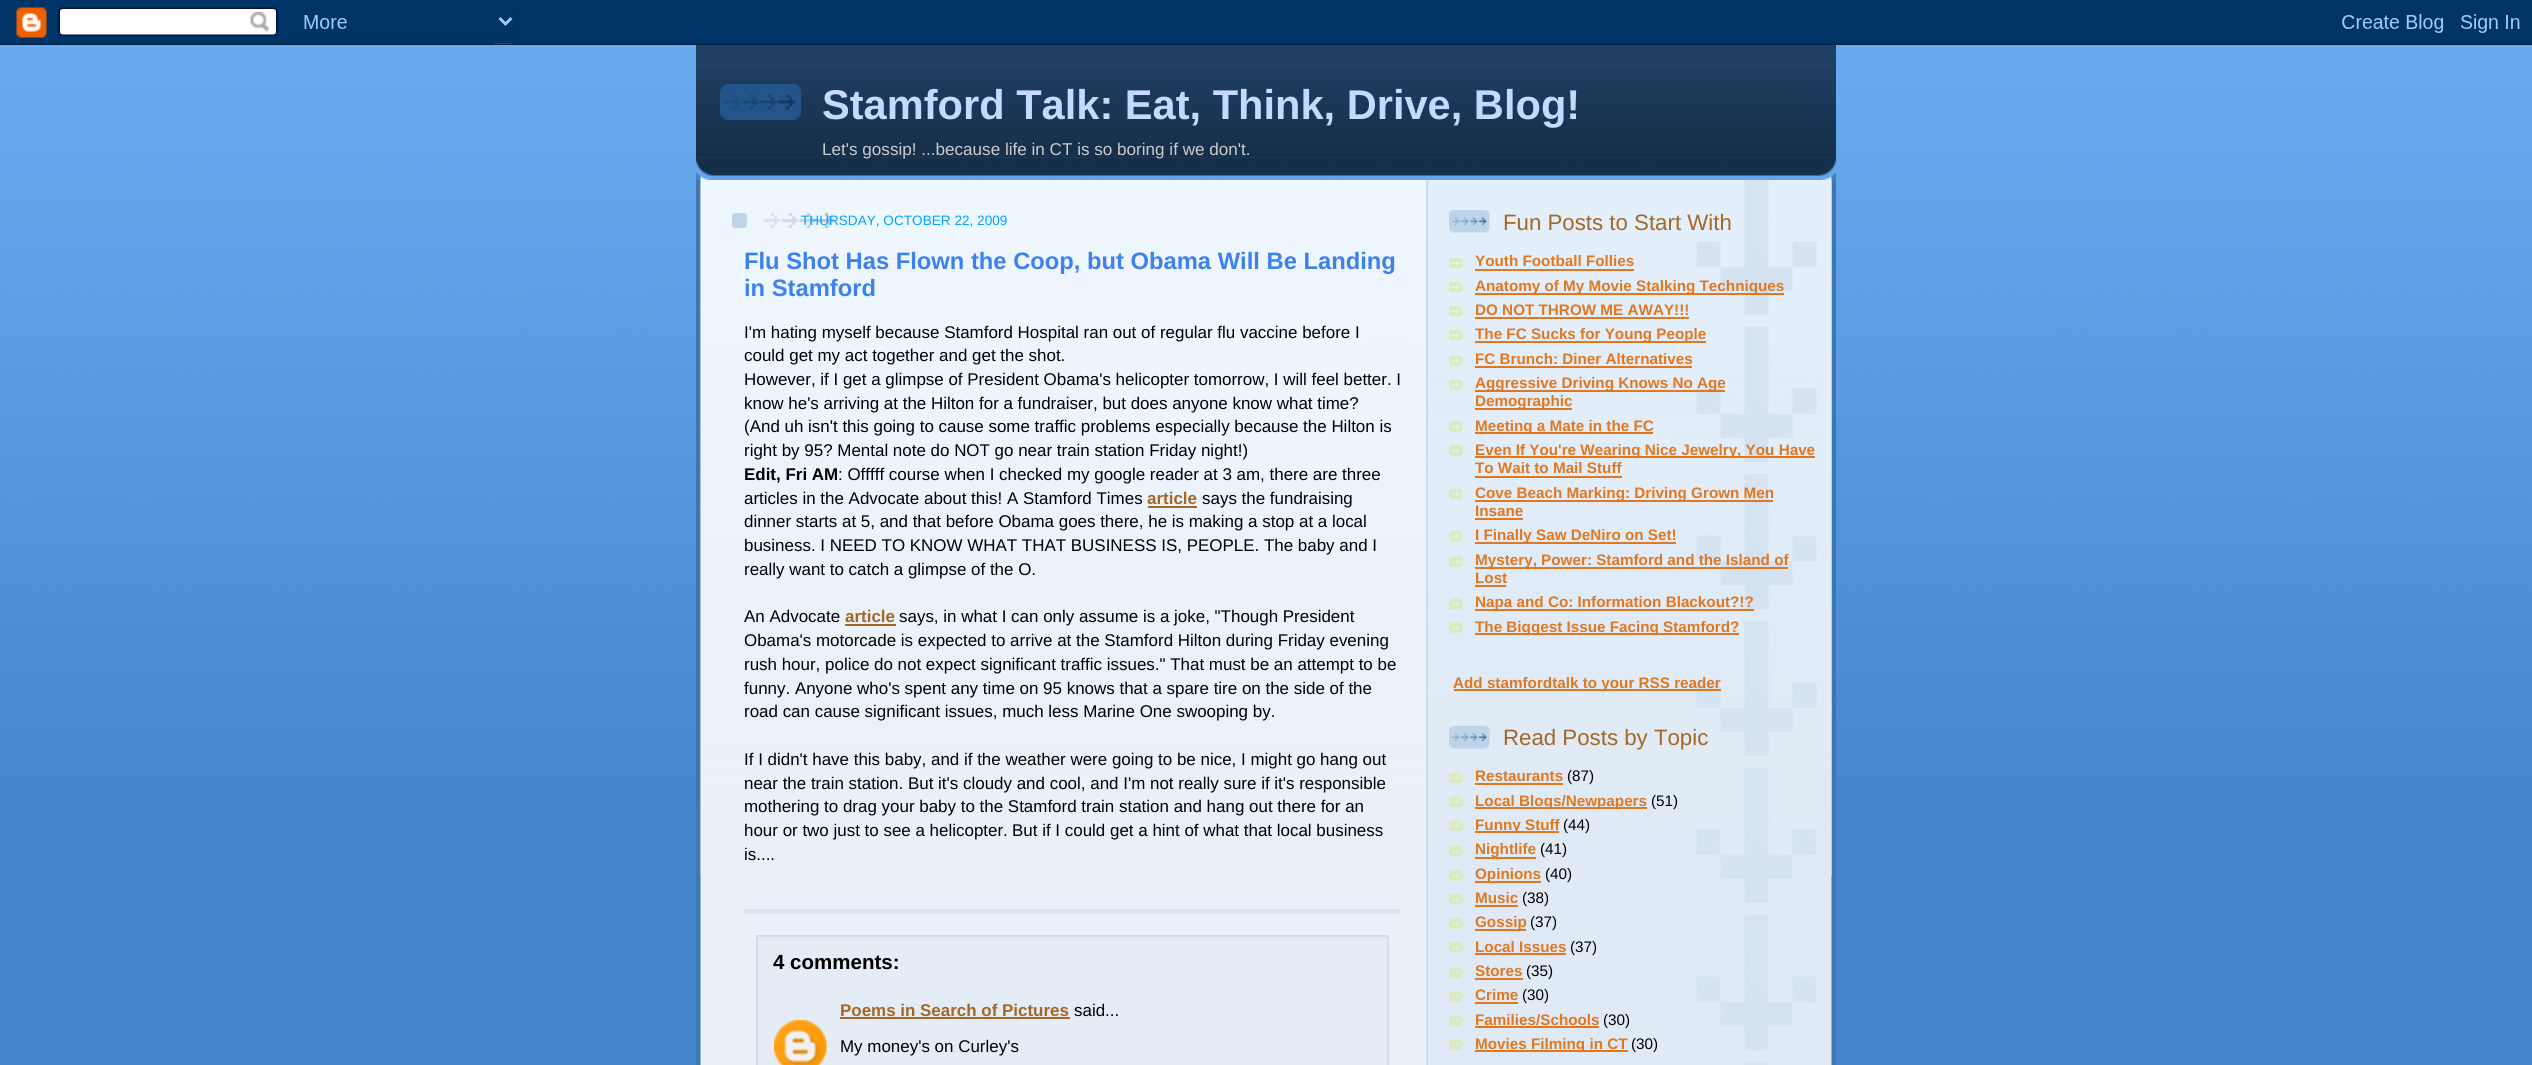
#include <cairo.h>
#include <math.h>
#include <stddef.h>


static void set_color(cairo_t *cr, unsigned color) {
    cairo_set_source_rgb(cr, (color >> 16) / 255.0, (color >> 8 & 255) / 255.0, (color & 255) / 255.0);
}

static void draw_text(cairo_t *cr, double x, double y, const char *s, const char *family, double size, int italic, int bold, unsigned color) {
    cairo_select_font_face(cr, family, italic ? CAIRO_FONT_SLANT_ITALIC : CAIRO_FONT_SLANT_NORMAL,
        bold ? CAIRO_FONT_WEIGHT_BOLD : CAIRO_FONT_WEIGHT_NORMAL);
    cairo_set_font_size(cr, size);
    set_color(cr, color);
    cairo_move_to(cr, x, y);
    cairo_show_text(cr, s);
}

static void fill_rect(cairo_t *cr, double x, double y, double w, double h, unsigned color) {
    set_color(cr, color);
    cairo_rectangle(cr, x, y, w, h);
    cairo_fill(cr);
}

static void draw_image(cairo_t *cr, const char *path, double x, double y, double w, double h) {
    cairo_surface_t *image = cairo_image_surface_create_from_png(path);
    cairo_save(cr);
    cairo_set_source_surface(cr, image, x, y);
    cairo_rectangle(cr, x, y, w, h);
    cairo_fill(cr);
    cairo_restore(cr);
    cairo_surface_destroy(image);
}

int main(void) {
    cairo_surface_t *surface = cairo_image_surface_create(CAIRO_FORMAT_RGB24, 2532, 1065);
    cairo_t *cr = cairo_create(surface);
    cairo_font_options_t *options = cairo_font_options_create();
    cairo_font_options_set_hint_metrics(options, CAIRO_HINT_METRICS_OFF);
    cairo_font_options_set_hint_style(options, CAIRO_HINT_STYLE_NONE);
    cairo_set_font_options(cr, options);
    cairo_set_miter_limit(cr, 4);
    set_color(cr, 0x4386CE);
    cairo_paint(cr);
    draw_image(cr, "assets/img1.png", 0, 43, 2532, 732);
    draw_image(cr, "assets/img2.png", 0, 0, 2532, 45);
    draw_image(cr, "assets/img3.png", 696, 158, 1140, 22);
    fill_rect(cr, 696, 45, 1140, 113, 0x204063);
    draw_image(cr, "assets/img4.png", 696, 69, 1140, 89);
    draw_image(cr, "assets/img5.png", 720, 84, 81, 36);
    draw_text(cr, 822, 119, "Stamford Talk: Eat, Think, Drive, Blog!", "Liberation Sans", 41.6, 0, 1, 0xC3D9FF);
    draw_text(cr, 822, 155, "Let's gossip! ...because life in CT is so boring if we don't.", "Liberation Sans", 17.1, 0, 0, 0xCCCCCC);
    draw_image(cr, "assets/img6.png", 696, 180, 1140, 885);
    draw_image(cr, "assets/img7.png", 700, 180, 725, 696);
    draw_image(cr, "assets/img8.png", 732, 213, 15, 15);
    draw_image(cr, "assets/img9.png", 763, 213, 71, 15);
    draw_text(cr, 801, 225, "THURSDAY, OCTOBER 22, 2009", "Liberation Sans", 13.6, 0, 0, 0x00A3FF);
    fill_rect(cr, 744, 909, 657, 5, 0xD8E7F7);
    draw_text(cr, 744, 269, "Flu Shot Has Flown the Coop, but Obama Will Be Landing", "Liberation Sans", 23.75, 0, 1, 0x3D81EE);
    draw_text(cr, 744, 296, "in Stamford", "Liberation Sans", 23.75, 0, 1, 0x3D81EE);
    draw_text(cr, 744, 338, "I'm hating myself because Stamford Hospital ran out of regular flu vaccine before I", "Liberation Sans", 16.95, 0, 0, 0x000000);
    draw_text(cr, 744, 361, "could get my act together and get the shot.", "Liberation Sans", 16.95, 0, 0, 0x000000);
    draw_text(cr, 744, 385, "However, if I get a glimpse of President Obama's helicopter tomorrow, I will feel better. I", "Liberation Sans", 16.95, 0, 0, 0x000000);
    draw_text(cr, 744, 409, "know he's arriving at the Hilton for a fundraiser, but does anyone know what time?", "Liberation Sans", 16.95, 0, 0, 0x000000);
    draw_text(cr, 744, 432, "(And uh isn't this going to cause some traffic problems especially because the Hilton is", "Liberation Sans", 16.95, 0, 0, 0x000000);
    draw_text(cr, 744, 456, "right by 95? Mental note do NOT go near train station Friday night!)", "Liberation Sans", 16.95, 0, 0, 0x000000);
    draw_text(cr, 744, 480, "Edit, Fri AM", "Liberation Sans", 16.95, 0, 1, 0x000000);
    draw_text(cr, 838, 480, ": Offfff course when I checked my google reader at 3 am, there are three", "Liberation Sans", 16.95, 0, 0, 0x000000);
    draw_text(cr, 744, 504, "articles in the Advocate about this!", "Liberation Sans", 16.95, 0, 0, 0x000000);
    draw_text(cr, 1007, 504, "A Stamford Times", "Liberation Sans", 16.95, 0, 0, 0x000000);
    draw_text(cr, 1147, 504, "article", "Liberation Sans", 16.95, 0, 1, 0xA56724);
    fill_rect(cr, 1148, 506, 49, 2, 0xA56724);
    draw_text(cr, 1202, 504, "says the fundraising", "Liberation Sans", 16.95, 0, 0, 0x000000);
    draw_text(cr, 744, 527, "dinner starts at 5, and that before Obama goes there, he is making a stop at a local", "Liberation Sans", 16.95, 0, 0, 0x000000);
    draw_text(cr, 744, 551, "business. I NEED TO KNOW WHAT THAT BUSINESS IS, PEOPLE. The baby and I", "Liberation Sans", 16.95, 0, 0, 0x000000);
    draw_text(cr, 744, 575, "really want to catch a glimpse of the O.", "Liberation Sans", 16.95, 0, 0, 0x000000);
    draw_text(cr, 744, 622, "An Advocate", "Liberation Sans", 16.95, 0, 0, 0x000000);
    draw_text(cr, 845, 622, "article", "Liberation Sans", 16.95, 0, 1, 0xA56724);
    fill_rect(cr, 845, 624, 51, 2, 0xA56724);
    draw_text(cr, 899, 622, "says, in what I can only assume is a joke, \"Though President", "Liberation Sans", 16.95, 0, 0, 0x000000);
    draw_text(cr, 744, 646, "Obama's motorcade is expected to arrive at the Stamford Hilton during Friday evening", "Liberation Sans", 16.95, 0, 0, 0x000000);
    draw_text(cr, 744, 670, "rush hour, police do not expect significant traffic issues.\" That must be an attempt to be", "Liberation Sans", 16.95, 0, 0, 0x000000);
    draw_text(cr, 744, 694, "funny. Anyone who's spent any time on 95 knows that a spare tire on the side of the", "Liberation Sans", 16.95, 0, 0, 0x000000);
    draw_text(cr, 744, 717, "road can cause significant issues, much less Marine One swooping by.", "Liberation Sans", 16.95, 0, 0, 0x000000);
    draw_text(cr, 744, 765, "If I didn't have this baby, and if the weather were going to be nice, I might go hang out", "Liberation Sans", 16.95, 0, 0, 0x000000);
    draw_text(cr, 744, 789, "near the train station. But it's cloudy and cool, and I'm not really sure if it's responsible", "Liberation Sans", 16.95, 0, 0, 0x000000);
    draw_text(cr, 744, 812, "mothering to drag your baby to the Stamford train station and hang out there for an", "Liberation Sans", 16.95, 0, 0, 0x000000);
    draw_text(cr, 744, 836, "hour or two just to see a helicopter.", "Liberation Sans", 16.95, 0, 0, 0x000000);
    draw_text(cr, 1012, 836, "But if I could get a hint of what that local business", "Liberation Sans", 16.95, 0, 0, 0x000000);
    draw_text(cr, 744, 860, "is....", "Liberation Sans", 16.95, 0, 0, 0x000000);
    set_color(cr, 0xE4ECF5);
    cairo_rectangle(cr, 757, 936, 631, 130);
    cairo_fill_preserve(cr);
    set_color(cr, 0xCEDEF0);
    cairo_stroke(cr);
    draw_text(cr, 773, 969, "4 comments:", "Liberation Sans", 20.5, 0, 1, 0x000000);
    draw_text(cr, 840, 1016, "Poems in Search of Pictures", "Liberation Sans", 16.95, 0, 1, 0xA56724);
    fill_rect(cr, 840, 1017, 230, 2, 0xA56724);
    draw_text(cr, 1074, 1016, "said...", "Liberation Sans", 16.95, 0, 0, 0x000000);
    draw_image(cr, "assets/img10.png", 774, 1020, 53, 45);
    draw_text(cr, 840, 1052, "My money's on Curley's", "Liberation Sans", 16.95, 0, 0, 0x000000);
    draw_image(cr, "assets/img11.png", 1428, 180, 404, 696);
    draw_image(cr, "assets/img12.png", 1696, 180, 121, 885);
    draw_image(cr, "assets/img13.png", 1449, 210, 41, 23);
    draw_text(cr, 1503, 230, "Fun Posts to Start With", "Liberation Sans", 22.25, 0, 0, 0xA56724);
    draw_image(cr, "assets/img14.png", 1449, 258, 14, 11);
    draw_text(cr, 1475, 266, "Youth Football Follies", "Liberation Sans", 15.25, 0, 1, 0xE1771E);
    fill_rect(cr, 1475, 269, 159, 2, 0xE1771E);
    draw_image(cr, "assets/img15.png", 1449, 282, 14, 11);
    fill_rect(cr, 1475, 293, 309, 2, 0xE1771E);
    draw_text(cr, 1475, 291, "Anatomy of My Movie Stalking Techniques", "Liberation Sans", 15.25, 0, 1, 0xE1771E);
    draw_image(cr, "assets/img16.png", 1449, 306, 14, 11);
    draw_text(cr, 1475, 315, "DO NOT THROW ME AWAY!!!", "Liberation Sans", 15.25, 0, 1, 0xE1771E);
    fill_rect(cr, 1475, 317, 214, 2, 0xE1771E);
    draw_image(cr, "assets/img17.png", 1449, 330, 14, 11);
    fill_rect(cr, 1475, 341, 231, 2, 0xE1771E);
    draw_text(cr, 1475, 339, "The FC Sucks for Young People", "Liberation Sans", 15.25, 0, 1, 0xE1771E);
    draw_image(cr, "assets/img18.png", 1449, 355, 14, 11);
    draw_text(cr, 1475, 364, "FC Brunch: Diner Alternatives", "Liberation Sans", 15.25, 0, 1, 0xE1771E);
    fill_rect(cr, 1475, 366, 217, 2, 0xE1771E);
    draw_image(cr, "assets/img19.png", 1449, 379, 14, 11);
    fill_rect(cr, 1475, 390, 250, 2, 0xE1771E);
    draw_text(cr, 1475, 388, "Aggressive Driving Knows No Age", "Liberation Sans", 15.25, 0, 1, 0xE1771E);
    fill_rect(cr, 1475, 408, 97, 2, 0xE1771E);
    draw_text(cr, 1475, 406, "Demographic", "Liberation Sans", 15.25, 0, 1, 0xE1771E);
    draw_image(cr, "assets/img20.png", 1449, 421, 14, 11);
    fill_rect(cr, 1475, 432, 178, 2, 0xE1771E);
    draw_text(cr, 1475, 431, "Meeting a Mate in the FC", "Liberation Sans", 15.25, 0, 1, 0xE1771E);
    draw_image(cr, "assets/img21.png", 1449, 445, 14, 11);
    fill_rect(cr, 1475, 456, 340, 2, 0xE1771E);
    draw_text(cr, 1475, 455, "Even If You're Wearing Nice Jewelry, You Have", "Liberation Sans", 15.25, 0, 1, 0xE1771E);
    draw_text(cr, 1475, 473, "To Wait to Mail Stuff", "Liberation Sans", 15.25, 0, 1, 0xE1771E);
    fill_rect(cr, 1475, 476, 147, 2, 0xE1771E);
    draw_image(cr, "assets/img22.png", 1449, 489, 14, 11);
    fill_rect(cr, 1475, 500, 298, 2, 0xE1771E);
    draw_text(cr, 1475, 498, "Cove Beach Marking: Driving Grown Men", "Liberation Sans", 15.25, 0, 1, 0xE1771E);
    draw_text(cr, 1475, 516, "Insane", "Liberation Sans", 15.25, 0, 1, 0xE1771E);
    fill_rect(cr, 1475, 518, 48, 2, 0xE1771E);
    draw_image(cr, "assets/img23.png", 1449, 531, 14, 11);
    fill_rect(cr, 1475, 542, 201, 2, 0xE1771E);
    draw_text(cr, 1475, 540, "I Finally Saw DeNiro on Set!", "Liberation Sans", 15.25, 0, 1, 0xE1771E);
    draw_image(cr, "assets/img24.png", 1449, 556, 14, 11);
    fill_rect(cr, 1475, 567, 313, 2, 0xE1771E);
    draw_text(cr, 1475, 565, "Mystery, Power: Stamford and the Island of", "Liberation Sans", 15.25, 0, 1, 0xE1771E);
    draw_text(cr, 1475, 583, "Lost", "Liberation Sans", 15.25, 0, 1, 0xE1771E);
    fill_rect(cr, 1475, 585, 31, 2, 0xE1771E);
    draw_image(cr, "assets/img25.png", 1449, 598, 14, 11);
    fill_rect(cr, 1475, 609, 279, 2, 0xE1771E);
    draw_text(cr, 1475, 607, "Napa and Co: Information Blackout?!?", "Liberation Sans", 15.25, 0, 1, 0xE1771E);
    draw_image(cr, "assets/img26.png", 1449, 622, 14, 11);
    fill_rect(cr, 1475, 633, 264, 2, 0xE1771E);
    draw_text(cr, 1475, 632, "The Biggest Issue Facing Stamford?", "Liberation Sans", 15.25, 0, 1, 0xE1771E);
    fill_rect(cr, 1454, 689, 267, 2, 0xE1771E);
    draw_text(cr, 1453, 688, "Add stamfordtalk to your RSS reader", "Liberation Sans", 15.25, 0, 1, 0xE1771E);
    draw_image(cr, "assets/img27.png", 1449, 726, 41, 23);
    draw_text(cr, 1503, 745, "Read Posts by Topic", "Liberation Sans", 22.25, 0, 0, 0xA56724);
    draw_image(cr, "assets/img28.png", 1449, 772, 14, 11);
    draw_text(cr, 1475, 781, "Restaurants", "Liberation Sans", 15.25, 0, 1, 0xE1771E);
    fill_rect(cr, 1475, 783, 88, 2, 0xE1771E);
    draw_text(cr, 1567, 781, "(87)", "Liberation Sans", 15.25, 0, 0, 0x000000);
    draw_image(cr, "assets/img29.png", 1449, 796, 14, 11);
    fill_rect(cr, 1475, 807, 172, 2, 0xE1771E);
    draw_text(cr, 1475, 806, "Local Blogs/Newpapers", "Liberation Sans", 15.25, 0, 1, 0xE1771E);
    draw_text(cr, 1651, 806, "(51)", "Liberation Sans", 15.25, 0, 0, 0x000000);
    draw_image(cr, "assets/img30.png", 1449, 820, 14, 11);
    fill_rect(cr, 1475, 831, 84, 2, 0xE1771E);
    draw_text(cr, 1475, 830, "Funny Stuff", "Liberation Sans", 15.25, 0, 1, 0xE1771E);
    draw_text(cr, 1563, 830, "(44)", "Liberation Sans", 15.25, 0, 0, 0x000000);
    draw_image(cr, "assets/img31.png", 1449, 846, 14, 11);
    fill_rect(cr, 1475, 857, 61, 2, 0xE1771E);
    draw_text(cr, 1475, 854, "Nightlife", "Liberation Sans", 15.25, 0, 1, 0xE1771E);
    draw_text(cr, 1540, 854, "(41)", "Liberation Sans", 15.25, 0, 0, 0x000000);
    draw_image(cr, "assets/img31.png", 1449, 870, 14, 11);
    fill_rect(cr, 1475, 881, 66, 2, 0xE1771E);
    draw_text(cr, 1475, 879, "Opinions", "Liberation Sans", 15.25, 0, 1, 0xE1771E);
    draw_text(cr, 1545, 879, "(40)", "Liberation Sans", 15.25, 0, 0, 0x000000);
    draw_image(cr, "assets/img31.png", 1449, 894, 14, 11);
    draw_text(cr, 1475, 903, "Music", "Liberation Sans", 15.25, 0, 1, 0xE1771E);
    fill_rect(cr, 1475, 905, 43, 2, 0xE1771E);
    draw_text(cr, 1522, 903, "(38)", "Liberation Sans", 15.25, 0, 0, 0x000000);
    draw_image(cr, "assets/img31.png", 1449, 918, 14, 11);
    fill_rect(cr, 1475, 929, 51, 2, 0xE1771E);
    draw_text(cr, 1475, 927, "Gossip", "Liberation Sans", 15.25, 0, 1, 0xE1771E);
    draw_text(cr, 1530, 927, "(37)", "Liberation Sans", 15.25, 0, 0, 0x000000);
    draw_image(cr, "assets/img31.png", 1449, 942, 14, 11);
    draw_text(cr, 1475, 952, "Local Issues", "Liberation Sans", 15.25, 0, 1, 0xE1771E);
    fill_rect(cr, 1475, 953, 91, 2, 0xE1771E);
    draw_text(cr, 1570, 952, "(37)", "Liberation Sans", 15.25, 0, 0, 0x000000);
    draw_image(cr, "assets/img32.png", 1449, 967, 14, 11);
    draw_text(cr, 1475, 976, "Stores", "Liberation Sans", 15.25, 0, 1, 0xE1771E);
    fill_rect(cr, 1475, 978, 48, 2, 0xE1771E);
    draw_text(cr, 1526, 976, "(35)", "Liberation Sans", 15.25, 0, 0, 0x000000);
    draw_image(cr, "assets/img32.png", 1449, 991, 14, 11);
    draw_text(cr, 1475, 1000, "Crime", "Liberation Sans", 15.25, 0, 1, 0xE1771E);
    fill_rect(cr, 1475, 1002, 43, 2, 0xE1771E);
    draw_text(cr, 1522, 1000, "(30)", "Liberation Sans", 15.25, 0, 0, 0x000000);
    draw_image(cr, "assets/img32.png", 1449, 1015, 14, 11);
    draw_text(cr, 1475, 1025, "Families/Schools", "Liberation Sans", 15.25, 0, 1, 0xE1771E);
    fill_rect(cr, 1475, 1026, 124, 2, 0xE1771E);
    draw_text(cr, 1603, 1025, "(30)", "Liberation Sans", 15.25, 0, 0, 0x000000);
    draw_image(cr, "assets/img32.png", 1449, 1039, 14, 11);
    fill_rect(cr, 1475, 1050, 153, 2, 0xE1771E);
    draw_text(cr, 1475, 1049, "Movies Filming in CT", "Liberation Sans", 15.25, 0, 1, 0xE1771E);
    draw_text(cr, 1631, 1049, "(30)", "Liberation Sans", 15.25, 0, 0, 0x000000);
    cairo_surface_write_to_png(surface, "output.png");
    cairo_font_options_destroy(options);
    cairo_destroy(cr);
    cairo_surface_destroy(surface);
    return 0;
}
